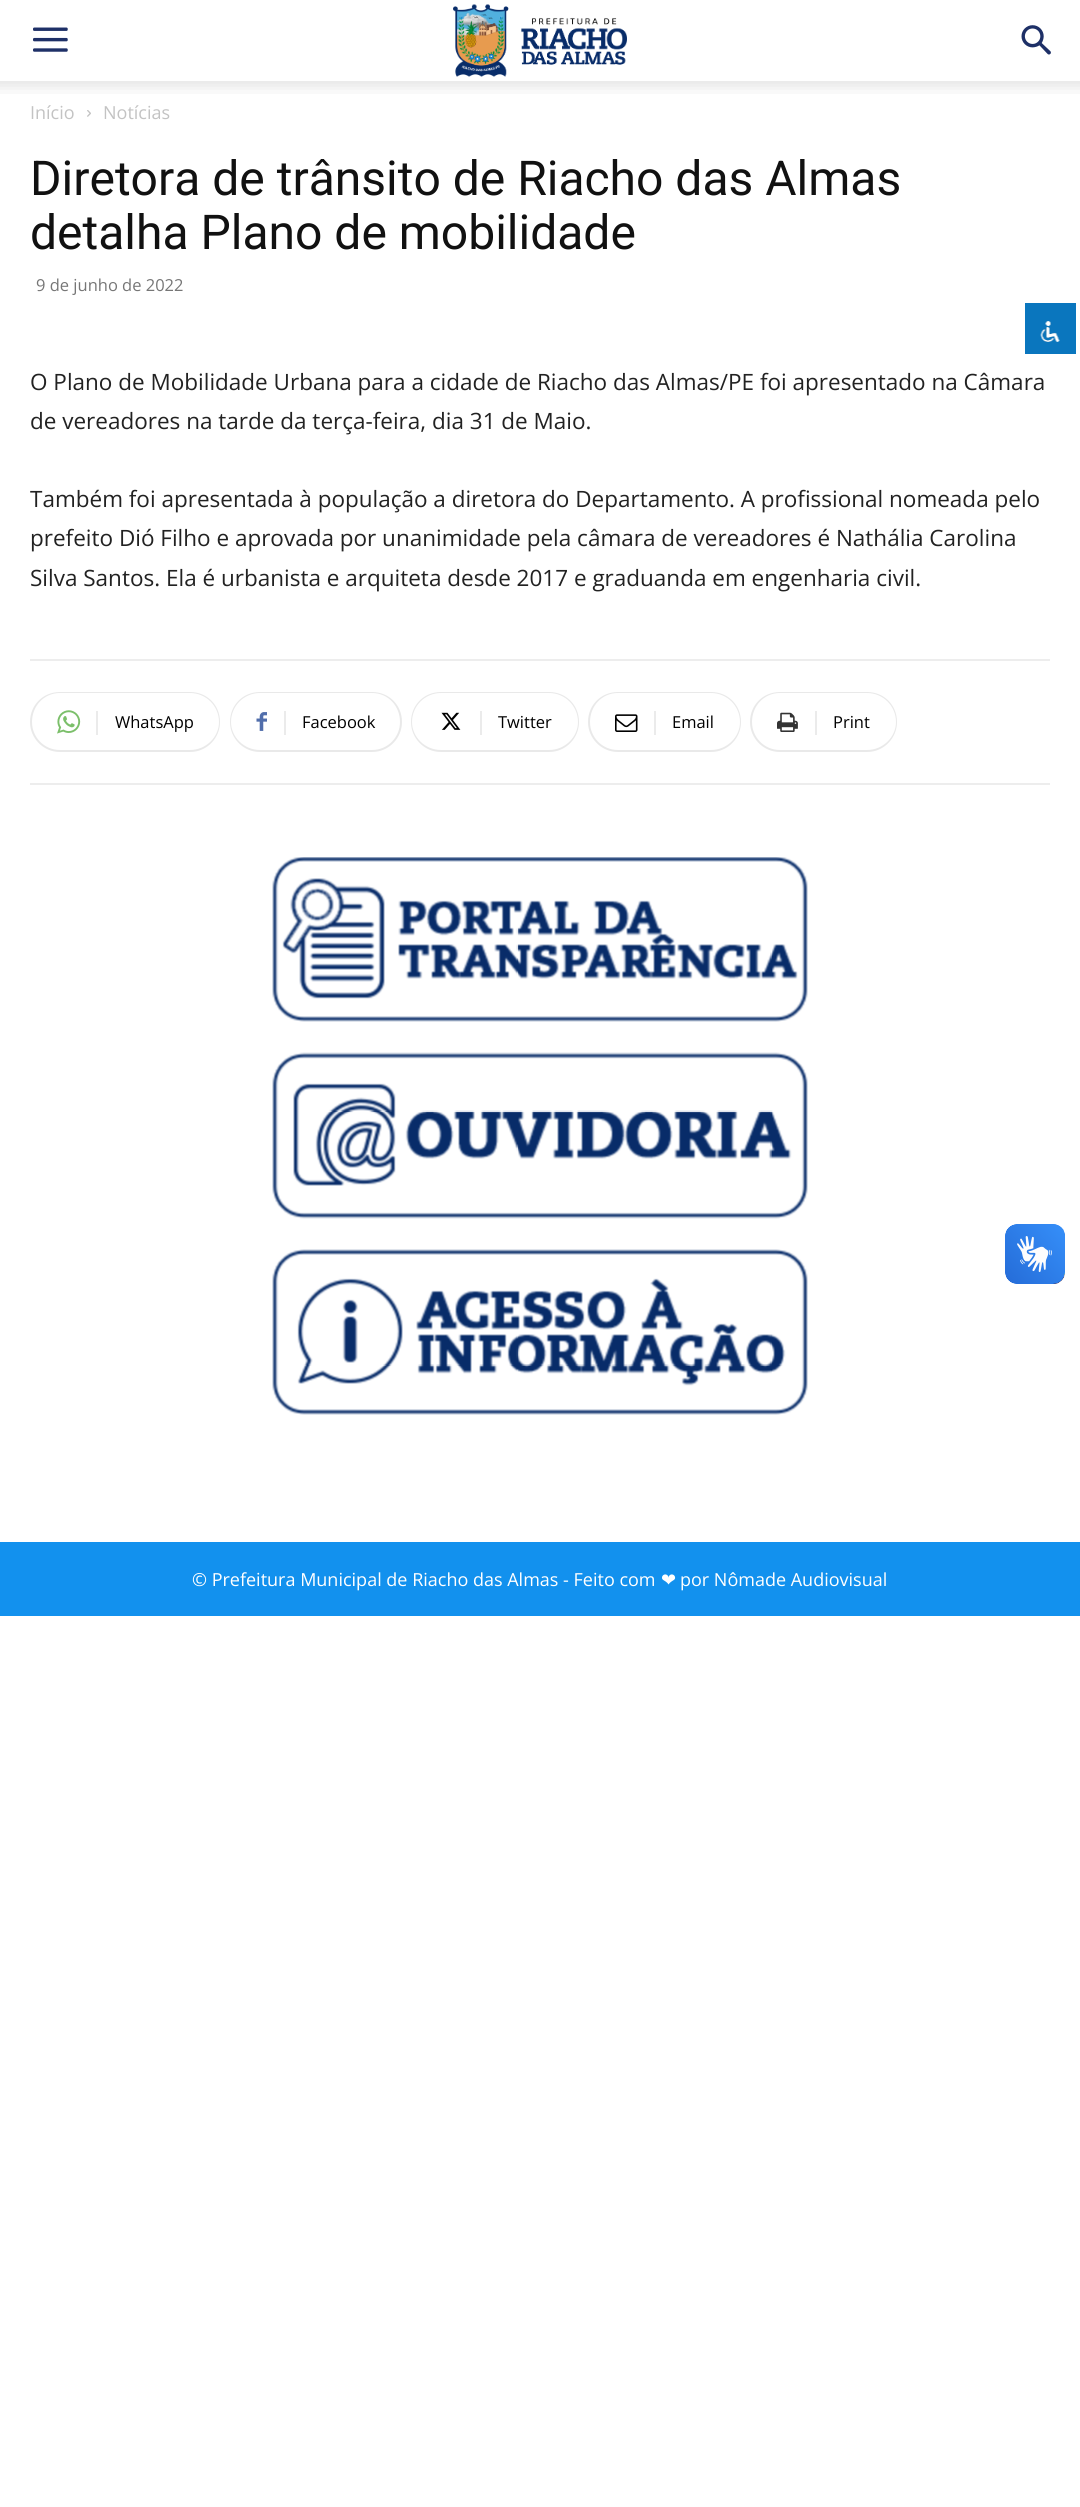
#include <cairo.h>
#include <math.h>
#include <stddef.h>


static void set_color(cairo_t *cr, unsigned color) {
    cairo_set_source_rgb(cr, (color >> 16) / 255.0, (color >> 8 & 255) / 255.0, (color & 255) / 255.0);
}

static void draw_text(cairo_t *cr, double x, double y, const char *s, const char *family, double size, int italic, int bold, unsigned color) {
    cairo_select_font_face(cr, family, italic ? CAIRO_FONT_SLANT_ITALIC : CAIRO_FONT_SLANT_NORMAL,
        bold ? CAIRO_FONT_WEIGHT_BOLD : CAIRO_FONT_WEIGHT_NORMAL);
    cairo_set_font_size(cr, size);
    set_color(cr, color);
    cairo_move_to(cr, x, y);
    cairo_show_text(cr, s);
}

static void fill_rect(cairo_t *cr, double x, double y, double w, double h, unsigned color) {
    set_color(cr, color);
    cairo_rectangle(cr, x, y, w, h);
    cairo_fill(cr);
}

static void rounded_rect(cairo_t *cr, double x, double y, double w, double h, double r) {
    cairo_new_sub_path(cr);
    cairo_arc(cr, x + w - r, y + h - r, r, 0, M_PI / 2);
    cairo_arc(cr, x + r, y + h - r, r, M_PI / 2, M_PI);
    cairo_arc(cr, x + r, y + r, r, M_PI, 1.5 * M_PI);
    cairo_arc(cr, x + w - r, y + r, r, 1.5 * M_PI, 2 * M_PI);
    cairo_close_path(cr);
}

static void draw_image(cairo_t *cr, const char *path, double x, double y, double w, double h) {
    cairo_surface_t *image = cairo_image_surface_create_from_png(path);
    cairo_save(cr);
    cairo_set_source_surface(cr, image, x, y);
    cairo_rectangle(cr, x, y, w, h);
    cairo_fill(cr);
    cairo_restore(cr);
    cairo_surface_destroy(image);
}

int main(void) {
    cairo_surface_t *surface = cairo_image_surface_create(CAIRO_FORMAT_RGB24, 1080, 2507);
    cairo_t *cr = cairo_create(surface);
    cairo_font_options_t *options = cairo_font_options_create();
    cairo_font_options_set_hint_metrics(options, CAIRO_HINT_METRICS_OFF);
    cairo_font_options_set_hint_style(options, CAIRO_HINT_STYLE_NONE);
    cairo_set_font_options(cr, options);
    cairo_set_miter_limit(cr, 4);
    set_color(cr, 0xFFFFFF);
    cairo_paint(cr);
    draw_image(cr, "assets/img1.png", 33, 27, 35, 25);
    draw_image(cr, "assets/img2.png", 453, 4, 174, 73);
    draw_image(cr, "assets/img3.png", 1021, 25, 30, 30);
    draw_image(cr, "assets/img4.png", 0, 81, 1080, 13);
    draw_text(cr, 30, 119, "Início", "Open Sans", 18, 0, 0, 0xC3C3C3);
    draw_image(cr, "assets/img5.png", 87, 110, 4, 7);
    draw_text(cr, 103, 119, "Notícias", "Open Sans", 18, 0, 0, 0xC3C3C3);
    draw_text(cr, 30, 195, "Diretora de trânsito de Riacho das Almas", "Roboto", 48, 0, 0, 0x111111);
    draw_text(cr, 30, 249, "detalha Plano de mobilidade", "Roboto", 48, 0, 0, 0x111111);
    draw_text(cr, 36, 291, "9 de junho de 2022", "Open Sans", 16.5, 0, 0, 0x767676);
    draw_text(cr, 30, 390, "O Plano de Mobilidade Urbana para a cidade de Riacho das Almas/PE foi apresentado na Câmara", "Open Sans", 22.5, 0, 0, 0x222222);
    draw_text(cr, 30, 429, "de vereadores na tarde da terça-feira, dia 31 de Maio.", "Open Sans", 22.5, 0, 0, 0x222222);
    draw_text(cr, 30, 507, "Também foi apresentada à população a diretora do Departamento. A profissional nomeada pelo", "Open Sans", 22.5, 0, 0, 0x222222);
    draw_text(cr, 30, 546, "prefeito Dió Filho e aprovada por unanimidade pela câmara de vereadores é Nathália Carolina", "Open Sans", 22.5, 0, 0, 0x222222);
    draw_text(cr, 30, 586, "Silva Santos. Ela é urbanista e arquiteta desde 2017 e graduanda em engenharia civil.", "Open Sans", 22.5, 0, 0, 0x222222);
    fill_rect(cr, 30, 659, 1020, 2, 0xEDEDED);
    fill_rect(cr, 30, 783, 1020, 2, 0xEDEDED);
    set_color(cr, 0xE9E9E9);
    cairo_set_fill_rule(cr, CAIRO_FILL_RULE_EVEN_ODD);
    cairo_new_path(cr);
    cairo_move_to(cr, 96, 692);
    cairo_line_to(cr, 190, 692);
    cairo_curve_to(cr, 207, 692, 220, 705, 220, 722);
    cairo_curve_to(cr, 220, 738, 207, 752, 190, 752);
    cairo_line_to(cr, 96, 752);
    cairo_close_path(cr);
    cairo_move_to(cr, 96, 693);
    cairo_line_to(cr, 190, 693);
    cairo_curve_to(cr, 206, 693, 219, 706, 219, 722);
    cairo_curve_to(cr, 219, 737, 206, 750, 190, 750);
    cairo_line_to(cr, 96, 750);
    cairo_close_path(cr);
    cairo_fill(cr);
    cairo_new_path(cr);
    cairo_move_to(cr, 60, 692);
    cairo_line_to(cr, 105, 692);
    cairo_line_to(cr, 105, 752);
    cairo_line_to(cr, 60, 752);
    cairo_curve_to(cr, 43, 752, 30, 738, 30, 722);
    cairo_curve_to(cr, 30, 705, 43, 692, 60, 692);
    cairo_close_path(cr);
    cairo_move_to(cr, 60, 693);
    cairo_line_to(cr, 105, 693);
    cairo_line_to(cr, 105, 750);
    cairo_line_to(cr, 60, 750);
    cairo_curve_to(cr, 44, 750, 32, 737, 32, 722);
    cairo_curve_to(cr, 32, 706, 44, 693, 60, 693);
    cairo_close_path(cr);
    cairo_fill(cr);
    draw_image(cr, "assets/img6.png", 57, 710, 24, 24);
    fill_rect(cr, 96, 711, 2, 24, 0xEBEBEB);
    draw_text(cr, 115, 728, "WhatsApp", "Open Sans", 16.5, 0, 0, 0x000000);
    set_color(cr, 0xE9E9E9);
    cairo_new_path(cr);
    cairo_move_to(cr, 284, 692);
    cairo_line_to(cr, 372, 692);
    cairo_curve_to(cr, 389, 692, 402, 705, 402, 722);
    cairo_curve_to(cr, 402, 738, 389, 752, 372, 752);
    cairo_line_to(cr, 284, 752);
    cairo_close_path(cr);
    cairo_move_to(cr, 284, 693);
    cairo_line_to(cr, 372, 693);
    cairo_curve_to(cr, 388, 693, 400, 706, 400, 722);
    cairo_curve_to(cr, 400, 737, 388, 750, 372, 750);
    cairo_line_to(cr, 284, 750);
    cairo_close_path(cr);
    cairo_fill(cr);
    cairo_new_path(cr);
    cairo_move_to(cr, 260, 692);
    cairo_line_to(cr, 292, 692);
    cairo_line_to(cr, 292, 752);
    cairo_line_to(cr, 260, 752);
    cairo_curve_to(cr, 243, 752, 230, 738, 230, 722);
    cairo_curve_to(cr, 230, 705, 243, 692, 260, 692);
    cairo_close_path(cr);
    cairo_move_to(cr, 260, 693);
    cairo_line_to(cr, 292, 693);
    cairo_line_to(cr, 292, 750);
    cairo_line_to(cr, 260, 750);
    cairo_curve_to(cr, 244, 750, 231, 737, 231, 722);
    cairo_curve_to(cr, 231, 706, 244, 693, 260, 693);
    cairo_close_path(cr);
    cairo_fill(cr);
    draw_image(cr, "assets/img7.png", 256, 712, 11, 19);
    fill_rect(cr, 284, 711, 2, 24, 0xEBEBEB);
    draw_text(cr, 302, 728, "Facebook", "Open Sans", 16.5, 0, 0, 0x000000);
    set_color(cr, 0xE9E9E9);
    cairo_new_path(cr);
    cairo_move_to(cr, 480, 692);
    cairo_line_to(cr, 549, 692);
    cairo_curve_to(cr, 566, 692, 579, 705, 579, 722);
    cairo_curve_to(cr, 579, 738, 566, 752, 549, 752);
    cairo_line_to(cr, 480, 752);
    cairo_close_path(cr);
    cairo_move_to(cr, 480, 693);
    cairo_line_to(cr, 549, 693);
    cairo_curve_to(cr, 565, 693, 578, 706, 578, 722);
    cairo_curve_to(cr, 578, 737, 565, 750, 549, 750);
    cairo_line_to(cr, 480, 750);
    cairo_close_path(cr);
    cairo_fill(cr);
    cairo_new_path(cr);
    cairo_move_to(cr, 441, 692);
    cairo_line_to(cr, 489, 692);
    cairo_line_to(cr, 489, 752);
    cairo_line_to(cr, 441, 752);
    cairo_curve_to(cr, 424, 752, 411, 738, 411, 722);
    cairo_curve_to(cr, 411, 705, 424, 692, 441, 692);
    cairo_close_path(cr);
    cairo_move_to(cr, 441, 693);
    cairo_line_to(cr, 489, 693);
    cairo_line_to(cr, 489, 750);
    cairo_line_to(cr, 441, 750);
    cairo_curve_to(cr, 425, 750, 412, 737, 412, 722);
    cairo_curve_to(cr, 412, 706, 425, 693, 441, 693);
    cairo_close_path(cr);
    cairo_fill(cr);
    draw_image(cr, "assets/img8.png", 441, 712, 20, 18);
    fill_rect(cr, 480, 711, 2, 24, 0xEBEBEB);
    draw_text(cr, 498, 728, "Twitter", "Open Sans", 16.5, 0, 0, 0x000000);
    set_color(cr, 0xE9E9E9);
    cairo_new_path(cr);
    cairo_move_to(cr, 654, 692);
    cairo_line_to(cr, 711, 692);
    cairo_curve_to(cr, 728, 692, 741, 705, 741, 722);
    cairo_curve_to(cr, 741, 738, 728, 752, 711, 752);
    cairo_line_to(cr, 654, 752);
    cairo_close_path(cr);
    cairo_move_to(cr, 654, 693);
    cairo_line_to(cr, 711, 693);
    cairo_curve_to(cr, 727, 693, 740, 706, 740, 722);
    cairo_curve_to(cr, 740, 737, 727, 750, 711, 750);
    cairo_line_to(cr, 654, 750);
    cairo_close_path(cr);
    cairo_fill(cr);
    cairo_new_path(cr);
    cairo_move_to(cr, 618, 692);
    cairo_line_to(cr, 663, 692);
    cairo_line_to(cr, 663, 752);
    cairo_line_to(cr, 618, 752);
    cairo_curve_to(cr, 601, 752, 588, 738, 588, 722);
    cairo_curve_to(cr, 588, 705, 601, 692, 618, 692);
    cairo_close_path(cr);
    cairo_move_to(cr, 618, 693);
    cairo_line_to(cr, 663, 693);
    cairo_line_to(cr, 663, 750);
    cairo_line_to(cr, 618, 750);
    cairo_curve_to(cr, 602, 750, 590, 737, 590, 722);
    cairo_curve_to(cr, 590, 706, 602, 693, 618, 693);
    cairo_close_path(cr);
    cairo_fill(cr);
    draw_image(cr, "assets/img9.png", 615, 714, 23, 18);
    fill_rect(cr, 654, 711, 2, 24, 0xEBEBEB);
    draw_text(cr, 672, 728, "Email", "Open Sans", 16.5, 0, 0, 0x000000);
    set_color(cr, 0xE9E9E9);
    cairo_new_path(cr);
    cairo_move_to(cr, 814, 692);
    cairo_line_to(cr, 867, 692);
    cairo_curve_to(cr, 884, 692, 897, 705, 897, 722);
    cairo_curve_to(cr, 897, 738, 884, 752, 867, 752);
    cairo_line_to(cr, 814, 752);
    cairo_close_path(cr);
    cairo_move_to(cr, 814, 693);
    cairo_line_to(cr, 867, 693);
    cairo_curve_to(cr, 883, 693, 896, 706, 896, 722);
    cairo_curve_to(cr, 896, 737, 883, 750, 867, 750);
    cairo_line_to(cr, 814, 750);
    cairo_close_path(cr);
    cairo_fill(cr);
    cairo_new_path(cr);
    cairo_move_to(cr, 780, 692);
    cairo_line_to(cr, 824, 692);
    cairo_line_to(cr, 824, 752);
    cairo_line_to(cr, 780, 752);
    cairo_curve_to(cr, 763, 752, 750, 738, 750, 722);
    cairo_curve_to(cr, 750, 705, 763, 692, 780, 692);
    cairo_close_path(cr);
    cairo_move_to(cr, 780, 693);
    cairo_line_to(cr, 824, 693);
    cairo_line_to(cr, 824, 750);
    cairo_line_to(cr, 780, 750);
    cairo_curve_to(cr, 764, 750, 752, 737, 752, 722);
    cairo_curve_to(cr, 752, 706, 764, 693, 780, 693);
    cairo_close_path(cr);
    cairo_fill(cr);
    draw_image(cr, "assets/img10.png", 777, 712, 21, 20);
    fill_rect(cr, 815, 711, 2, 24, 0xEBEBEB);
    draw_text(cr, 833, 728, "Print", "Open Sans", 16.5, 0, 0, 0x000000);
    draw_image(cr, "assets/img11.png", 272, 857, 536, 165);
    draw_image(cr, "assets/img12.png", 272, 1052, 536, 167);
    draw_image(cr, "assets/img13.png", 272, 1249, 536, 166);
    fill_rect(cr, 0, 1542, 1080, 74, 0x1291EE);
    draw_text(cr, 192, 1586, "© Prefeitura Municipal de Riacho das Almas - Feito com", "Open Sans", 18, 0, 0, 0xFFFFFF);
    draw_text(cr, 661, 1586, "❤", "DejaVu Sans", 18, 0, 0, 0xFFFFFF);
    draw_text(cr, 680, 1586, "por Nômade Audiovisual", "Open Sans", 18, 0, 0, 0xFFFFFF);
    draw_image(cr, "assets/img14.png", 1005, 1224, 60, 60);
    draw_image(cr, "assets/img15.png", 1005, 1224, 60, 60);
    set_color(cr, 0x0A76BE);
    rounded_rect(cr, 1023.5, 301.5, 54, 54, 1.5);
    cairo_fill_preserve(cr);
    set_color(cr, 0xFFFFFF);
    cairo_set_line_width(cr, 3);
    cairo_stroke(cr);
    draw_image(cr, "assets/img16.png", 1040, 321, 20, 21);
    cairo_surface_write_to_png(surface, "output.png");
    cairo_font_options_destroy(options);
    cairo_destroy(cr);
    cairo_surface_destroy(surface);
    return 0;
}
